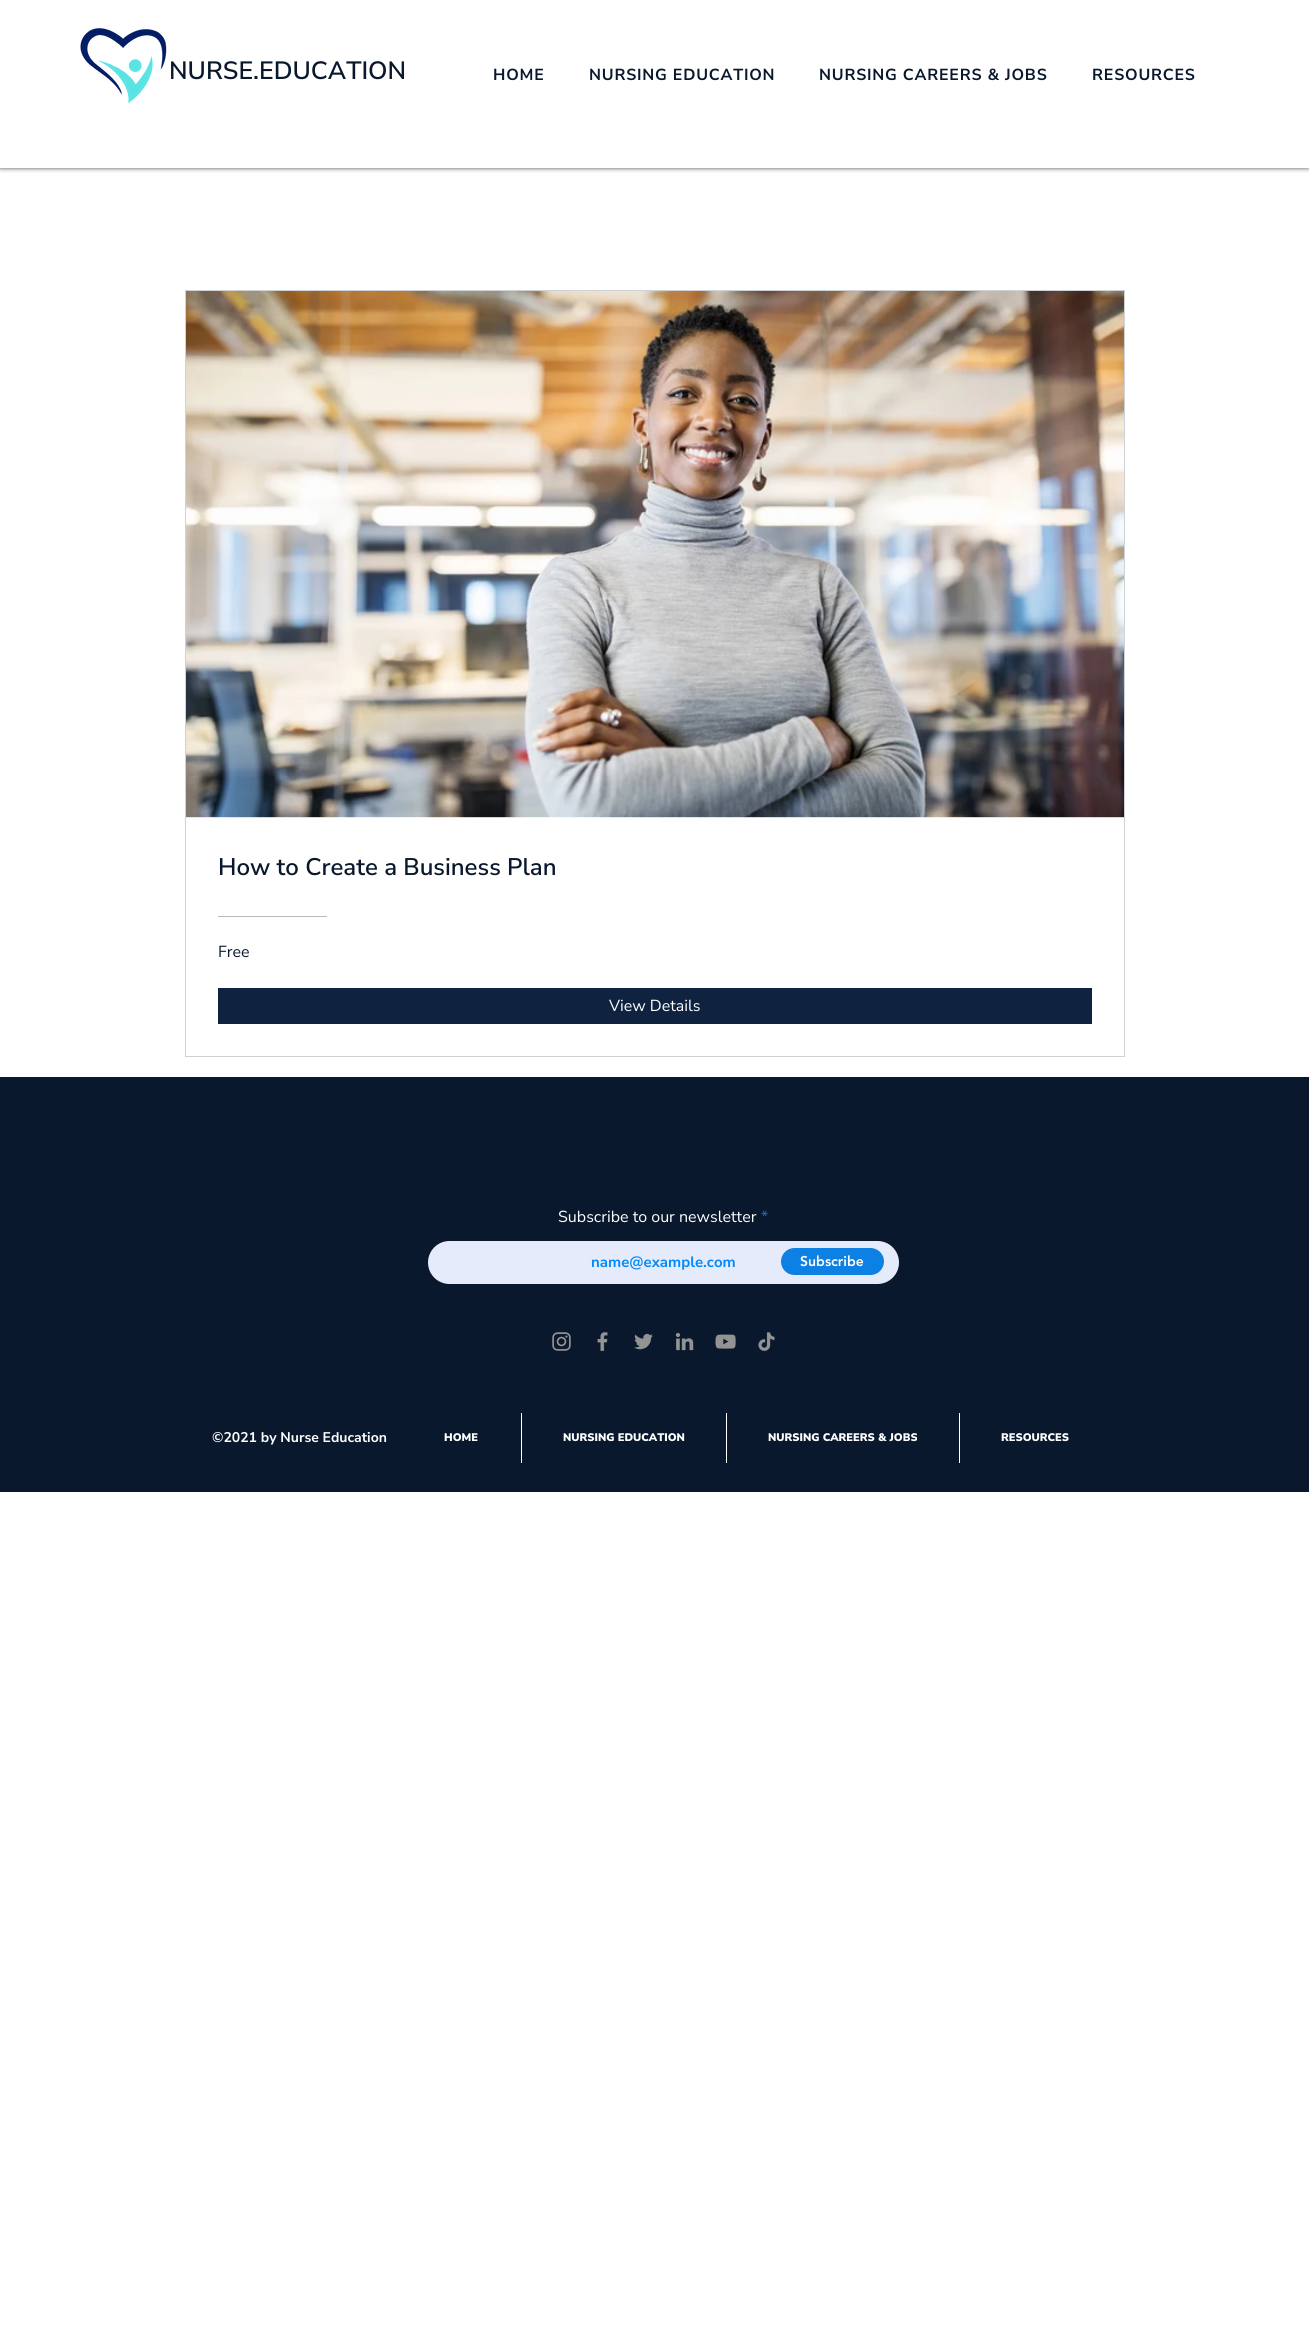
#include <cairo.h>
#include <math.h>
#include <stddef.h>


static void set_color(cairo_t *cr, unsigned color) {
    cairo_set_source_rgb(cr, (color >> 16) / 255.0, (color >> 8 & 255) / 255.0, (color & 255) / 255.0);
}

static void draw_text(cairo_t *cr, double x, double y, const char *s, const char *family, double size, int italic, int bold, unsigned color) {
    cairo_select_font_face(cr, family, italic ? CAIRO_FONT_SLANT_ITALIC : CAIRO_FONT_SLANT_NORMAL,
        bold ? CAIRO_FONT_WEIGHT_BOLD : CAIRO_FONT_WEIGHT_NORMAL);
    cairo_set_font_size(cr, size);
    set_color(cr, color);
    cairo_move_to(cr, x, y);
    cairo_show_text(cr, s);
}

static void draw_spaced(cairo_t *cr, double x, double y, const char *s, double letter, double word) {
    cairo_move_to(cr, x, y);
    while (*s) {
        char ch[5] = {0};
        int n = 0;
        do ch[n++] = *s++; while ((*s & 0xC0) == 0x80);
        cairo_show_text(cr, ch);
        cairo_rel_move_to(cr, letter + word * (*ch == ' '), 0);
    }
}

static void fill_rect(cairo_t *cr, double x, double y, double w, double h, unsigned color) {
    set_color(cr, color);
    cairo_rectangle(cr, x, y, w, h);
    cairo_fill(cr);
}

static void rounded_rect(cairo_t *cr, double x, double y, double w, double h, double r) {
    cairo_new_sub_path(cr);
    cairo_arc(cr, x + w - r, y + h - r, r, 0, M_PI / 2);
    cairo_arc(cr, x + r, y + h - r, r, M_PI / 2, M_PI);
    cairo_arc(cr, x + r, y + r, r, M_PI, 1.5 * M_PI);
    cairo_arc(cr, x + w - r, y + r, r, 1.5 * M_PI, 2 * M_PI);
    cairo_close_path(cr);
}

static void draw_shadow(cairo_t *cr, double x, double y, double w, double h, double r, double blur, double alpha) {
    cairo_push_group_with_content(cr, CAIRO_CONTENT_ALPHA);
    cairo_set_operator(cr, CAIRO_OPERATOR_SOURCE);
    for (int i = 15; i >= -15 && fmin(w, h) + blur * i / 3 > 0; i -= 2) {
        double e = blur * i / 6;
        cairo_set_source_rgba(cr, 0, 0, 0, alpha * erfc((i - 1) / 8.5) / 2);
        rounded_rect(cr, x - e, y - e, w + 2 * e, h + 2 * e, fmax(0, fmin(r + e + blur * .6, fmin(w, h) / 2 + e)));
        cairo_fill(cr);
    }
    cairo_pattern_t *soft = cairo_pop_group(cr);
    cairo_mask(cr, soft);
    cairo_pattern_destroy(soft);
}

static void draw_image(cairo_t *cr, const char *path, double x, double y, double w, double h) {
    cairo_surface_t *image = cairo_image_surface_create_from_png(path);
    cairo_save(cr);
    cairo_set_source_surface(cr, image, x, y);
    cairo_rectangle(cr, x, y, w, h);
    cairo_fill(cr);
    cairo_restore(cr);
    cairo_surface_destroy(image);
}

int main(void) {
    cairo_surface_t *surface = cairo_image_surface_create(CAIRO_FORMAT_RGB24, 1309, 2335);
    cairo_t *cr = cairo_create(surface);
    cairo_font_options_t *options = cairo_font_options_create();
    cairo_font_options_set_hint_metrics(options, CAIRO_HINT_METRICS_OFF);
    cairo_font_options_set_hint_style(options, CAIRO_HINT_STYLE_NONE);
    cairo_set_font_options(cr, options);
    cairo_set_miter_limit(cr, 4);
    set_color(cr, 0xFFFFFF);
    cairo_paint(cr);
    cairo_save(cr);
    cairo_rectangle(cr, 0, 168, 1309, 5);
    cairo_clip(cr);
    set_color(cr, 0x000000);
    draw_shadow(cr, 0, 0, 1309, 168, 0, 2.5, 0.7);
    cairo_restore(cr);
    draw_image(cr, "assets/img1.png", 80, 28, 87, 76);
    draw_text(cr, 169, 79, "NURSE.EDUCATION", "Nunito Sans SemiBold", 25, 0, 0, 0x0A182D);
    cairo_select_font_face(cr, "Nunito Sans", CAIRO_FONT_SLANT_NORMAL, CAIRO_FONT_WEIGHT_BOLD);
    cairo_set_font_size(cr, 16);
    draw_spaced(cr, 493, 80, "HOME", 0.8, 0);
    draw_spaced(cr, 589, 80, "NURSING EDUCATION", 0.8, 0);
    draw_spaced(cr, 819, 80, "NURSING CAREERS & JOBS", 0.8, 0);
    draw_spaced(cr, 1092, 80, "RESOURCES", 0.8, 0);
    cairo_rectangle(cr, 185.5, 290.5, 939, 766);
    set_color(cr, 0xCED1D5);
    cairo_set_line_width(cr, 1);
    cairo_stroke(cr);
    draw_image(cr, "assets/img2.png", 186, 291, 938, 527);
    draw_text(cr, 218, 875, "How to Create a Business Plan", "Nunito Sans SemiBold", 24, 0, 0, 0x0A182D);
    fill_rect(cr, 218, 916, 109, 1, 0xB6BAC0);
    draw_text(cr, 218, 957, "Free", "Nunito Sans", 16, 0, 0, 0x0A182D);
    fill_rect(cr, 218, 988, 874, 36, 0x0F2340);
    draw_text(cr, 609, 1011, "View Details", "Nunito Sans", 16, 0, 0, 0xFFFFFF);
    fill_rect(cr, 0, 1077, 1309, 415, 0x0A182D);
    draw_text(cr, 558, 1222, "Subscribe to our newsletter", "Nunito Sans", 16, 0, 0, 0xFFFFFF);
    draw_text(cr, 761, 1222, "*", "Nunito Sans", 16, 0, 0, 0x1D67CD);
    set_color(cr, 0xE5EBFA);
    rounded_rect(cr, 428, 1241, 471, 43, 21.5);
    cairo_fill(cr);
    draw_text(cr, 591, 1267, "name@example.com", "Nunito Sans", 15, 0, 1, 0x008AFC);
    set_color(cr, 0x0C80E3);
    rounded_rect(cr, 781, 1248, 103, 27, 13.5);
    cairo_fill(cr);
    draw_text(cr, 800, 1266, "Subscribe", "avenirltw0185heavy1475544 Black", 14, 0, 0, 0xFFFFFF);
    draw_image(cr, "assets/img3.png", 552, 1332, 19, 19);
    draw_image(cr, "assets/img4.png", 597, 1332, 11, 19);
    draw_image(cr, "assets/img5.png", 634, 1333, 19, 17);
    draw_image(cr, "assets/img6.png", 675, 1332, 19, 19);
    draw_image(cr, "assets/img7.png", 715, 1334, 21, 15);
    draw_image(cr, "assets/img8.png", 758, 1332, 17, 19);
    draw_text(cr, 212, 1442, "©2021 by Nurse Education", "Nunito Sans", 14, 0, 1, 0xFFFFFF);
    draw_text(cr, 444, 1441, "HOME", "Nunito Sans Black", 11, 0, 0, 0xFFFFFF);
    fill_rect(cr, 521, 1413, 1, 50, 0xFFFFFF);
    draw_text(cr, 563, 1441, "NURSING EDUCATION", "Nunito Sans Black", 11, 0, 0, 0xFFFFFF);
    fill_rect(cr, 726, 1413, 1, 50, 0xFFFFFF);
    draw_text(cr, 768, 1441, "NURSING CAREERS & JOBS", "Nunito Sans Black", 11, 0, 0, 0xFFFFFF);
    fill_rect(cr, 959, 1413, 1, 50, 0xFFFFFF);
    draw_text(cr, 1001, 1441, "RESOURCES", "Nunito Sans Black", 11, 0, 0, 0xFFFFFF);
    cairo_surface_write_to_png(surface, "output.png");
    cairo_font_options_destroy(options);
    cairo_destroy(cr);
    cairo_surface_destroy(surface);
    return 0;
}
